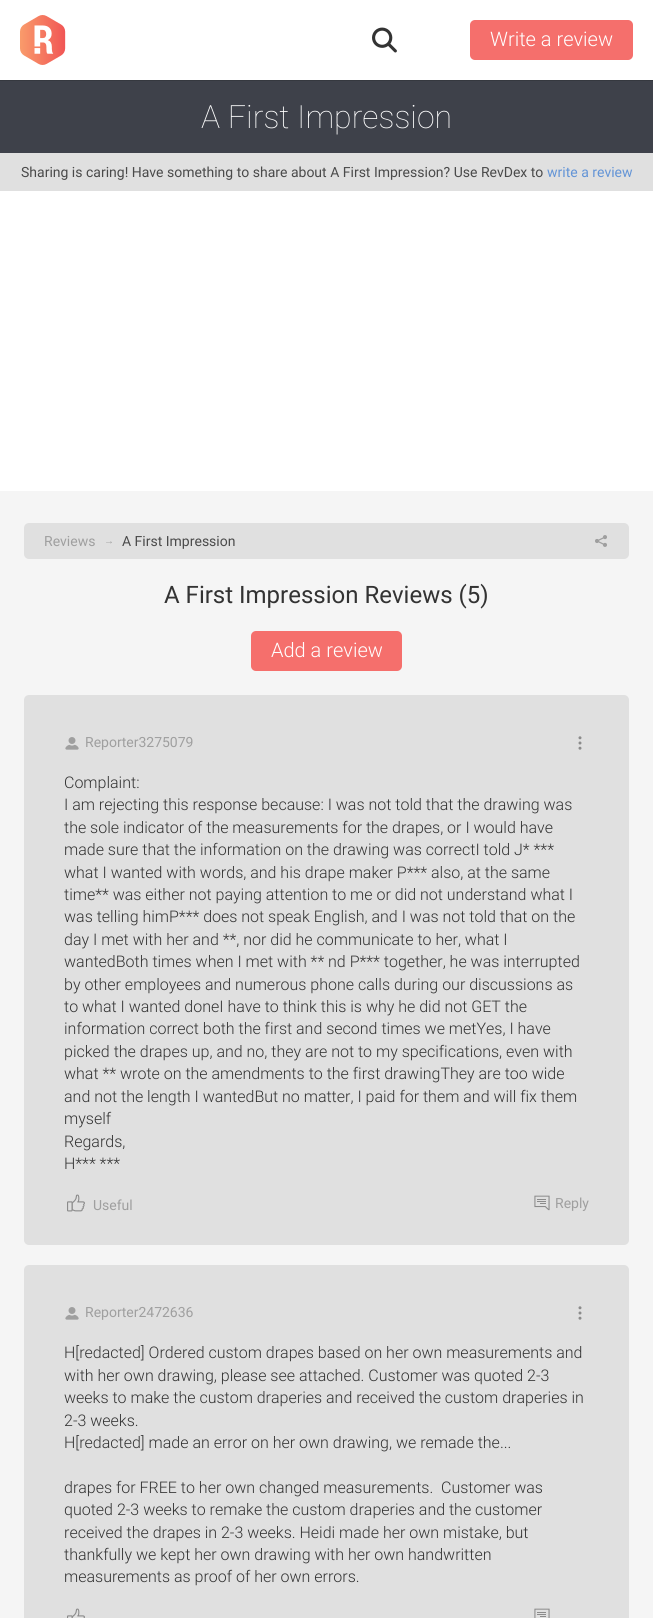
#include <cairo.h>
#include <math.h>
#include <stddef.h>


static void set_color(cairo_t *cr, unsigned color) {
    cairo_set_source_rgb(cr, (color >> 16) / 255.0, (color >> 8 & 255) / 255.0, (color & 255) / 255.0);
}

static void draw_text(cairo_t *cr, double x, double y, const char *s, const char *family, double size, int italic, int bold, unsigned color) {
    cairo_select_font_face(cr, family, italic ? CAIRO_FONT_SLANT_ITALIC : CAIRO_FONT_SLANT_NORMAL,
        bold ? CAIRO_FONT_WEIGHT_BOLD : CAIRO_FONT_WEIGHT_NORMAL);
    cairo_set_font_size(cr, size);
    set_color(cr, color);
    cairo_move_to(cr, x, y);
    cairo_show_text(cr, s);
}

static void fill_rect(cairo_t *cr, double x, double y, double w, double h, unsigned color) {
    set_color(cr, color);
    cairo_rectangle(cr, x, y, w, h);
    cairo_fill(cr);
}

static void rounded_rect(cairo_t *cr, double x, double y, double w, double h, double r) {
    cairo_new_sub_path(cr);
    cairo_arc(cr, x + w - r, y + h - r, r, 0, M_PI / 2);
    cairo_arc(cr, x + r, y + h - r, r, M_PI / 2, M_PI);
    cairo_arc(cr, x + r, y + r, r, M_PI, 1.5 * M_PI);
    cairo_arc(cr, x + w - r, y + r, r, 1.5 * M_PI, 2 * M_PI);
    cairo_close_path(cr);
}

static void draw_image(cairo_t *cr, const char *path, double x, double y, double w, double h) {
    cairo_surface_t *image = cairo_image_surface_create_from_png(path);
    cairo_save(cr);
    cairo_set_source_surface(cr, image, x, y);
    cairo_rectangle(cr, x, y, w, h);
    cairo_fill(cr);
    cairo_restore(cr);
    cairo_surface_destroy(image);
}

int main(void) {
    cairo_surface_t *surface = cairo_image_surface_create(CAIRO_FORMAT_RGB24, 653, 1618);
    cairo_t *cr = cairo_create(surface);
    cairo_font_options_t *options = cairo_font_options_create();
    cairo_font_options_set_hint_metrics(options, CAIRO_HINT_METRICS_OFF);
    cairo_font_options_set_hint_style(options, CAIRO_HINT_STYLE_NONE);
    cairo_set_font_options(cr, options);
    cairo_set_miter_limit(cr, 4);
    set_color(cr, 0xFFFFFF);
    cairo_paint(cr);
    draw_image(cr, "assets/img1.png", 20, 15, 46, 50);
    draw_image(cr, "assets/img2.png", 372, 27, 25, 26);
    set_color(cr, 0xF56F6C);
    rounded_rect(cr, 470, 20, 163, 40, 5);
    cairo_fill(cr);
    draw_text(cr, 490, 46, "Write a review", "Roboto Light", 20, 0, 0, 0xFFFFFF);
    fill_rect(cr, 0, 81, 653, 72, 0x3E414A);
    fill_rect(cr, 0, 80, 653, 1, 0x35383F);
    draw_text(cr, 201, 128, "A First Impression", "Roboto Thin", 32, 0, 0, 0xFFFFFF);
    fill_rect(cr, 0, 153, 653, 38, 0xE0E0E0);
    draw_text(cr, 21, 177, "Sharing is caring! Have something to share about A First Impression? Use RevDex to", "Roboto", 14, 0, 0, 0x4A4A4A);
    draw_text(cr, 547, 177, "write a review", "Roboto", 14, 0, 0, 0x6394D6);
    fill_rect(cr, 0, 491, 653, 1127, 0xF5F5F5);
    set_color(cr, 0xE0E0E0);
    rounded_rect(cr, 24, 523, 605, 36, 5);
    cairo_fill(cr);
    draw_text(cr, 44, 546, "Reviews", "Roboto", 14, 0, 0, 0x9F9F9F);
    draw_text(cr, 104, 544, "→", "Liberation Sans", 10, 0, 0, 0x9F9F9F);
    draw_text(cr, 122, 546, "A First Impression", "Roboto", 14, 0, 0, 0x4A4A4A);
    draw_image(cr, "assets/img3.png", 595, 535, 12, 12);
    draw_text(cr, 164, 603, "A First Impression Reviews (5)", "Roboto", 24, 0, 0, 0x333333);
    set_color(cr, 0xF56F6C);
    rounded_rect(cr, 251, 631, 151, 40, 5);
    cairo_fill(cr);
    draw_text(cr, 271, 657, "Add a review", "Roboto Light", 20, 0, 0, 0xFFFFFF);
    set_color(cr, 0xE0E0E0);
    rounded_rect(cr, 24, 695, 605, 550, 5);
    cairo_fill(cr);
    draw_image(cr, "assets/img4.png", 65, 737, 14, 13);
    draw_text(cr, 85, 747, "Reporter3275079", "Roboto", 14, 0, 0, 0x9F9F9F);
    set_color(cr, 0x8B8B8B);
    cairo_new_path(cr);
    cairo_arc(cr, 580, 743, 1.5, 0, 2 * M_PI);
    cairo_fill(cr);
    cairo_arc(cr, 580, 737.8, 1.5, 0, 2 * M_PI);
    cairo_fill(cr);
    cairo_arc(cr, 580, 748.2, 1.5, 0, 2 * M_PI);
    cairo_fill(cr);
    draw_text(cr, 64, 788, "Complaint:", "Roboto Light", 16, 0, 0, 0x333333);
    draw_text(cr, 64, 810, "I am rejecting this response because: I was not told that the drawing was", "Roboto Light", 16, 0, 0, 0x333333);
    draw_text(cr, 64, 833, "the sole indicator of the measurements for the drapes, or I would have", "Roboto Light", 16, 0, 0, 0x333333);
    draw_text(cr, 64, 855, "made sure that the information on the drawing was correctI told J* ***", "Roboto Light", 16, 0, 0, 0x333333);
    draw_text(cr, 64, 878, "what I wanted with words, and his drape maker P*** also, at the same", "Roboto Light", 16, 0, 0, 0x333333);
    draw_text(cr, 64, 900, "time** was either not paying attention to me or did not understand what I", "Roboto Light", 16, 0, 0, 0x333333);
    draw_text(cr, 64, 922, "was telling himP*** does not speak English, and I was not told that on the", "Roboto Light", 16, 0, 0, 0x333333);
    draw_text(cr, 64, 945, "day I met with her and **, nor did he communicate to her, what I", "Roboto Light", 16, 0, 0, 0x333333);
    draw_text(cr, 64, 967, "wantedBoth times when I met with ** nd P*** together, he was interrupted", "Roboto Light", 16, 0, 0, 0x333333);
    draw_text(cr, 64, 990, "by other employees and numerous phone calls during our discussions as", "Roboto Light", 16, 0, 0, 0x333333);
    draw_text(cr, 64, 1012, "to what I wanted doneI have to think this is why he did not GET the", "Roboto Light", 16, 0, 0, 0x333333);
    draw_text(cr, 64, 1034, "information correct both the first and second times we metYes, I have", "Roboto Light", 16, 0, 0, 0x333333);
    draw_text(cr, 64, 1057, "picked the drapes up, and no, they are not to my specifications, even with", "Roboto Light", 16, 0, 0, 0x333333);
    draw_text(cr, 64, 1079, "what ** wrote on the amendments to the first drawingThey are too wide", "Roboto Light", 16, 0, 0, 0x333333);
    draw_text(cr, 64, 1102, "and not the length I wantedBut no matter, I paid for them and will fix them", "Roboto Light", 16, 0, 0, 0x333333);
    draw_text(cr, 64, 1124, "myself", "Roboto Light", 16, 0, 0, 0x333333);
    draw_text(cr, 64, 1147, "Regards,", "Roboto Light", 16, 0, 0, 0x333333);
    draw_text(cr, 64, 1169, "H*** ***", "Roboto Light", 16, 0, 0, 0x333333);
    draw_image(cr, "assets/img5.png", 67, 1194, 18, 18);
    draw_text(cr, 93, 1210, "Useful", "Roboto", 14, 0, 0, 0x9F9F9F);
    draw_image(cr, "assets/img6.png", 534, 1195, 16, 16);
    draw_text(cr, 555, 1208, "Reply", "Roboto", 14, 0, 0, 0x9F9F9F);
    set_color(cr, 0xE0E0E0);
    rounded_rect(cr, 24, 1265, 605, 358, 5);
    cairo_fill(cr);
    draw_image(cr, "assets/img4.png", 65, 1307, 14, 13);
    draw_text(cr, 85, 1317, "Reporter2472636", "Roboto", 14, 0, 0, 0x9F9F9F);
    set_color(cr, 0x8B8B8B);
    cairo_new_path(cr);
    cairo_arc(cr, 580, 1313, 1.5, 0, 2 * M_PI);
    cairo_fill(cr);
    cairo_arc(cr, 580, 1307.8, 1.5, 0, 2 * M_PI);
    cairo_fill(cr);
    cairo_arc(cr, 580, 1318.2, 1.5, 0, 2 * M_PI);
    cairo_fill(cr);
    draw_text(cr, 64, 1358, "H[redacted] Ordered custom drapes based on her own measurements and", "Roboto Light", 16, 0, 0, 0x333333);
    draw_text(cr, 64, 1381, "with her own drawing, please see attached. Customer was quoted 2-3", "Roboto Light", 16, 0, 0, 0x333333);
    draw_text(cr, 64, 1403, "weeks to make the custom draperies and received the custom draperies in", "Roboto Light", 16, 0, 0, 0x333333);
    draw_text(cr, 64, 1426, "2-3 weeks.", "Roboto Light", 16, 0, 0, 0x333333);
    draw_text(cr, 64, 1448, "H[redacted] made an error on her own drawing, we remade the...", "Roboto Light", 16, 0, 0, 0x333333);
    draw_text(cr, 64, 1493, "drapes for FREE to her own changed measurements.  Customer was", "Roboto Light", 16, 0, 0, 0x333333);
    draw_text(cr, 64, 1515, "quoted 2-3 weeks to remake the custom draperies and the customer", "Roboto Light", 16, 0, 0, 0x333333);
    draw_text(cr, 64, 1538, "received the drapes in 2-3 weeks. Heidi made her own mistake, but", "Roboto Light", 16, 0, 0, 0x333333);
    draw_text(cr, 64, 1560, "thankfully we kept her own drawing with her own handwritten", "Roboto Light", 16, 0, 0, 0x333333);
    draw_text(cr, 64, 1582, "measurements as proof of her own errors.", "Roboto Light", 16, 0, 0, 0x333333);
    draw_image(cr, "assets/img7.png", 67, 1608, 18, 10);
    draw_image(cr, "assets/img8.png", 534, 1608, 16, 10);
    cairo_surface_write_to_png(surface, "output.png");
    cairo_font_options_destroy(options);
    cairo_destroy(cr);
    cairo_surface_destroy(surface);
    return 0;
}
